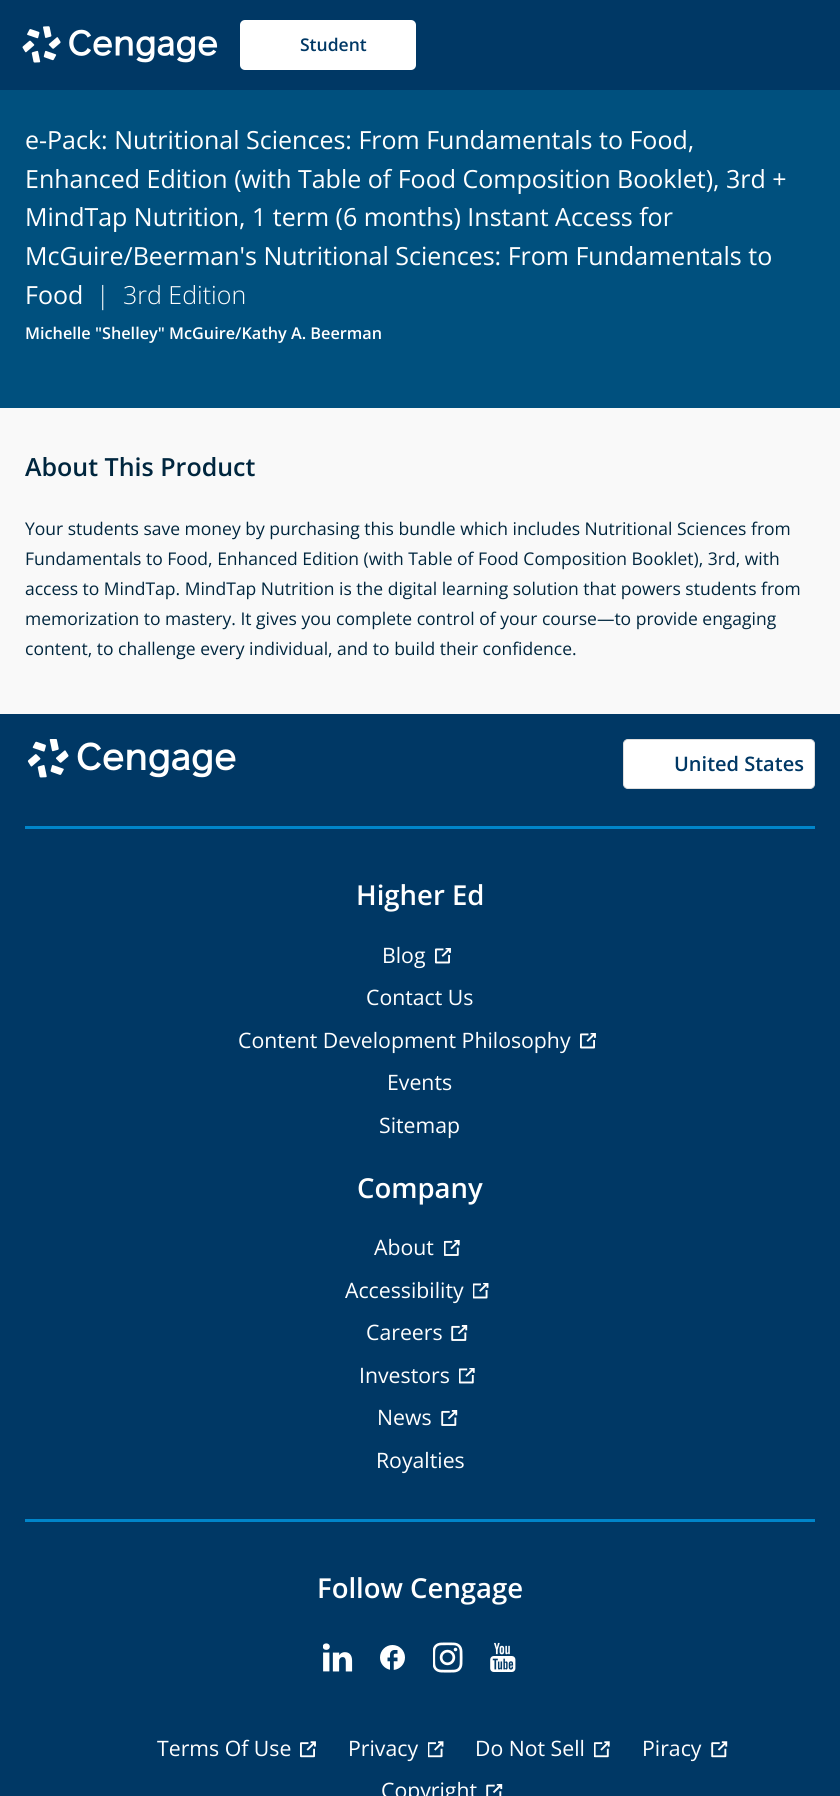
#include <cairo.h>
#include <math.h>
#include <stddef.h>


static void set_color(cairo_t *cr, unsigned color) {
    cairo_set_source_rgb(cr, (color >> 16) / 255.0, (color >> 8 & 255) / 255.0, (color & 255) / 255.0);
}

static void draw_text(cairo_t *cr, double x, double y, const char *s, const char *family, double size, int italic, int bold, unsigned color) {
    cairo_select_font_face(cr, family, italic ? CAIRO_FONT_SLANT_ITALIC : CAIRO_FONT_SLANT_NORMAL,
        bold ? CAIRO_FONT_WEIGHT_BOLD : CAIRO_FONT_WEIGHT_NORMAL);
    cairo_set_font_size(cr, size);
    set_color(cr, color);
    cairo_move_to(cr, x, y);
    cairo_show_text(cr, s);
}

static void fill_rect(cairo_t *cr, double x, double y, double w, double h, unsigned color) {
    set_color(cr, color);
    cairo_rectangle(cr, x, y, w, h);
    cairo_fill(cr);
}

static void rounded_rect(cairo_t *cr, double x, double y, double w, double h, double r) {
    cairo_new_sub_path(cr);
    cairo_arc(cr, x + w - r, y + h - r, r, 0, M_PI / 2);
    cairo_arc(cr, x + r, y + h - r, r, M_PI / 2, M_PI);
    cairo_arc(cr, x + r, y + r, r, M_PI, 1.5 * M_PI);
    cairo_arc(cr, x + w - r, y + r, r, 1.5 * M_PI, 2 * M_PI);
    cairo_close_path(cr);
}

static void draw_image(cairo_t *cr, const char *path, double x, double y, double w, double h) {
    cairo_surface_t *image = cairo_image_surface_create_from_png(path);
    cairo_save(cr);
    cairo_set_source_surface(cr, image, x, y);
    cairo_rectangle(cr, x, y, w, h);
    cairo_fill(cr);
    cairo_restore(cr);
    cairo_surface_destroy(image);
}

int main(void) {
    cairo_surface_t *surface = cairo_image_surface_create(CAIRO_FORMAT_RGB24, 840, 1796);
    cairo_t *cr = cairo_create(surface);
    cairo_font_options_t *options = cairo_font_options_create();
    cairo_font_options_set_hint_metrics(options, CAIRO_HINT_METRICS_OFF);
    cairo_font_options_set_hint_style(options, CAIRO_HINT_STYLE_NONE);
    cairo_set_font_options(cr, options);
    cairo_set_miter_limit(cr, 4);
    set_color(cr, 0x00507E);
    cairo_paint(cr);
    fill_rect(cr, 0, 0, 840, 90, 0x003865);
    draw_image(cr, "assets/img1.png", 22, 26, 196, 37);
    set_color(cr, 0xFFFFFF);
    rounded_rect(cr, 240, 20, 176, 50, 5);
    cairo_fill(cr);
    draw_text(cr, 300, 51, "Student", "Open Sans SemiBold", 17.5, 0, 0, 0x003865);
    draw_text(cr, 25, 149, "e-Pack: Nutritional Sciences: From Fundamentals to Food,", "Open Sans", 25, 0, 0, 0xFFFFFF);
    draw_text(cr, 25, 188, "Enhanced Edition (with Table of Food Composition Booklet), 3rd +", "Open Sans", 25, 0, 0, 0xFFFFFF);
    draw_text(cr, 25, 226, "MindTap Nutrition, 1 term (6 months) Instant Access for", "Open Sans", 25, 0, 0, 0xFFFFFF);
    draw_text(cr, 25, 265, "McGuire/Beerman's Nutritional Sciences: From Fundamentals to", "Open Sans", 25, 0, 0, 0xFFFFFF);
    draw_text(cr, 25, 304, "Food", "Open Sans", 25, 0, 0, 0xFFFFFF);
    draw_text(cr, 96, 304, "|", "Open Sans Light", 25, 0, 0, 0xFFFFFF);
    draw_text(cr, 123, 304, "3rd Edition", "Open Sans Light", 25, 0, 0, 0xFFFFFF);
    draw_text(cr, 25, 339, "Michelle \"Shelley\" McGuire/Kathy A. Beerman", "Open Sans SemiBold", 16.25, 0, 0, 0xFFFFFF);
    fill_rect(cr, 0, 408, 840, 306, 0xF9F9F9);
    draw_text(cr, 25, 476, "About This Product", "Open Sans SemiBold", 25, 0, 0, 0x00263E);
    draw_text(cr, 25, 535, "Your students save money by purchasing this bundle which includes Nutritional Sciences from", "Open Sans", 17.5, 0, 0, 0x00263E);
    draw_text(cr, 25, 565, "Fundamentals to Food, Enhanced Edition (with Table of Food Composition Booklet), 3rd, with", "Open Sans", 17.5, 0, 0, 0x00263E);
    draw_text(cr, 25, 595, "access to MindTap. MindTap Nutrition is the digital learning solution that powers students from", "Open Sans", 17.5, 0, 0, 0x00263E);
    draw_text(cr, 25, 625, "memorization to mastery. It gives you complete control of your course—to provide engaging", "Open Sans", 17.5, 0, 0, 0x00263E);
    draw_text(cr, 25, 655, "content, to challenge every individual, and to build their confidence.", "Open Sans", 17.5, 0, 0, 0x00263E);
    fill_rect(cr, 0, 714, 840, 1082, 0x003865);
    fill_rect(cr, 25, 826, 790, 3, 0x0085CA);
    draw_image(cr, "assets/img2.png", 27, 739, 209, 39);
    set_color(cr, 0xFFFFFF);
    rounded_rect(cr, 623.5, 739.5, 191, 49, 4.5);
    cairo_fill_preserve(cr);
    set_color(cr, 0xDEDEDE);
    cairo_set_line_width(cr, 1);
    cairo_stroke(cr);
    draw_text(cr, 674, 771, "United States", "Open Sans SemiBold", 20, 0, 0, 0x003865);
    fill_rect(cr, 25, 1519, 790, 3, 0x0085CA);
    draw_text(cr, 356, 905, "Higher Ed", "Open Sans SemiBold", 27.5, 0, 0, 0xFFFFFF);
    draw_text(cr, 382, 963, "Blog", "Open Sans", 21.25, 0, 0, 0xFFFFFF);
    draw_image(cr, "assets/img3.png", 435, 948, 16, 16);
    draw_text(cr, 366, 1005, "Contact Us", "Open Sans", 21.25, 0, 0, 0xFFFFFF);
    draw_text(cr, 238, 1048, "Content Development Philosophy", "Open Sans", 21.25, 0, 0, 0xFFFFFF);
    draw_image(cr, "assets/img3.png", 580, 1033, 16, 16);
    draw_text(cr, 387, 1090, "Events", "Open Sans", 21.25, 0, 0, 0xFFFFFF);
    draw_text(cr, 379, 1133, "Sitemap", "Open Sans", 21.25, 0, 0, 0xFFFFFF);
    draw_text(cr, 357, 1198, "Company", "Open Sans SemiBold", 27.5, 0, 0, 0xFFFFFF);
    draw_text(cr, 374, 1255, "About", "Open Sans", 21.25, 0, 0, 0xFFFFFF);
    draw_image(cr, "assets/img4.png", 444, 1240, 16, 16);
    draw_text(cr, 345, 1298, "Accessibility", "Open Sans", 21.25, 0, 0, 0xFFFFFF);
    draw_image(cr, "assets/img5.png", 473, 1283, 16, 16);
    draw_text(cr, 366, 1340, "Careers", "Open Sans", 21.25, 0, 0, 0xFFFFFF);
    draw_image(cr, "assets/img6.png", 451, 1325, 17, 16);
    draw_text(cr, 359, 1383, "Investors", "Open Sans", 21.25, 0, 0, 0xFFFFFF);
    draw_image(cr, "assets/img7.png", 459, 1368, 16, 16);
    draw_text(cr, 377, 1425, "News", "Open Sans", 21.25, 0, 0, 0xFFFFFF);
    draw_image(cr, "assets/img6.png", 441, 1410, 17, 16);
    draw_text(cr, 376, 1468, "Royalties", "Open Sans", 21.25, 0, 0, 0xFFFFFF);
    draw_text(cr, 317, 1598, "Follow Cengage", "Open Sans SemiBold", 27.5, 0, 0, 0xFFFFFF);
    draw_image(cr, "assets/img8.png", 323, 1643, 30, 29);
    draw_image(cr, "assets/img9.png", 380, 1645, 25, 25);
    draw_image(cr, "assets/img10.png", 433, 1642, 30, 31);
    draw_image(cr, "assets/img11.png", 490, 1642, 26, 30);
    draw_text(cr, 157, 1756, "Terms Of Use", "Open Sans", 21.25, 0, 0, 0xFFFFFF);
    draw_image(cr, "assets/img12.png", 300, 1741, 16, 17);
    draw_text(cr, 348, 1756, "Privacy", "Open Sans", 21.25, 0, 0, 0xFFFFFF);
    draw_image(cr, "assets/img13.png", 428, 1741, 16, 17);
    draw_text(cr, 475, 1756, "Do Not Sell", "Open Sans", 21.25, 0, 0, 0xFFFFFF);
    draw_image(cr, "assets/img14.png", 594, 1741, 16, 17);
    draw_text(cr, 642, 1756, "Piracy", "Open Sans", 21.25, 0, 0, 0xFFFFFF);
    draw_image(cr, "assets/img15.png", 711, 1741, 17, 17);
    draw_text(cr, 381, 1798, "Copyright", "Open Sans", 21.25, 0, 0, 0xFFFFFF);
    draw_image(cr, "assets/img16.png", 486, 1784, 17, 12);
    cairo_surface_write_to_png(surface, "output.png");
    cairo_font_options_destroy(options);
    cairo_destroy(cr);
    cairo_surface_destroy(surface);
    return 0;
}
